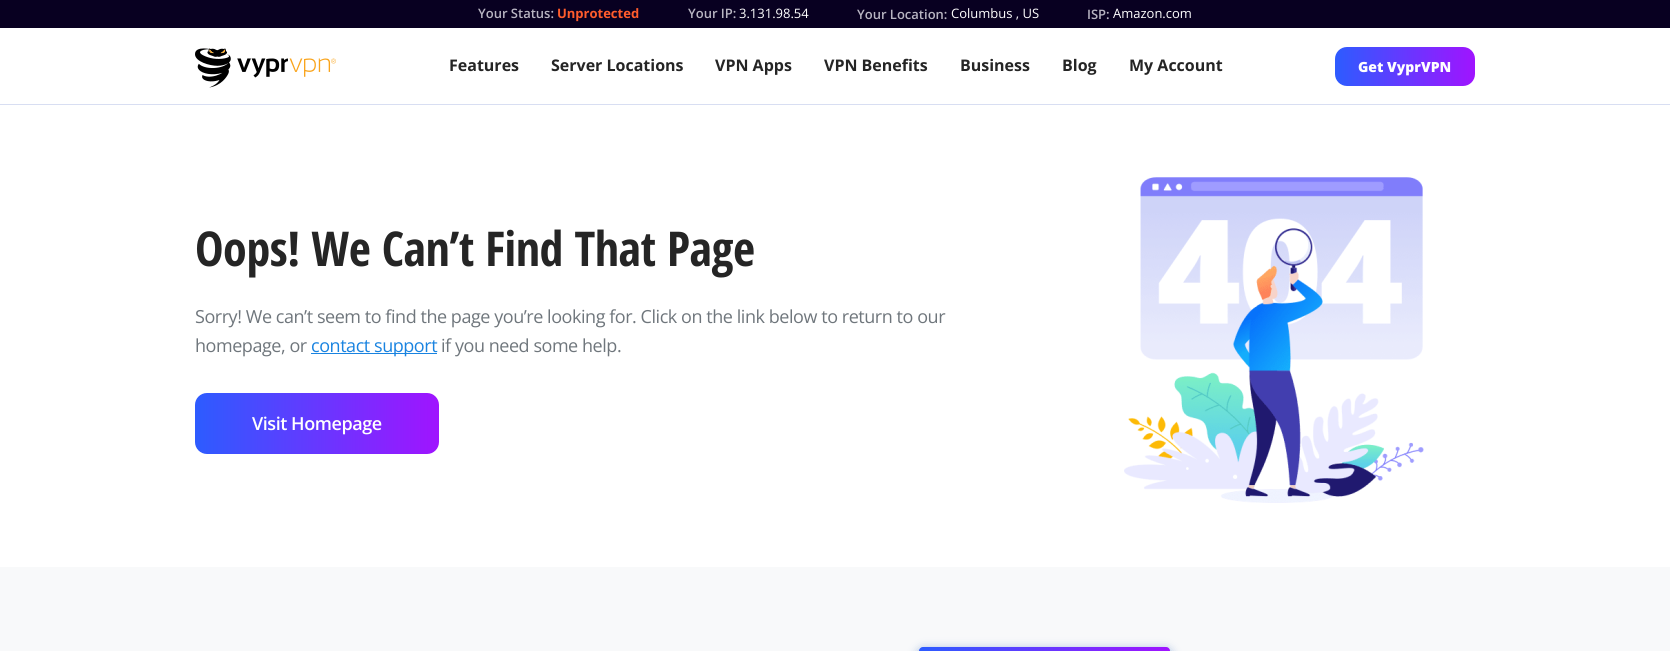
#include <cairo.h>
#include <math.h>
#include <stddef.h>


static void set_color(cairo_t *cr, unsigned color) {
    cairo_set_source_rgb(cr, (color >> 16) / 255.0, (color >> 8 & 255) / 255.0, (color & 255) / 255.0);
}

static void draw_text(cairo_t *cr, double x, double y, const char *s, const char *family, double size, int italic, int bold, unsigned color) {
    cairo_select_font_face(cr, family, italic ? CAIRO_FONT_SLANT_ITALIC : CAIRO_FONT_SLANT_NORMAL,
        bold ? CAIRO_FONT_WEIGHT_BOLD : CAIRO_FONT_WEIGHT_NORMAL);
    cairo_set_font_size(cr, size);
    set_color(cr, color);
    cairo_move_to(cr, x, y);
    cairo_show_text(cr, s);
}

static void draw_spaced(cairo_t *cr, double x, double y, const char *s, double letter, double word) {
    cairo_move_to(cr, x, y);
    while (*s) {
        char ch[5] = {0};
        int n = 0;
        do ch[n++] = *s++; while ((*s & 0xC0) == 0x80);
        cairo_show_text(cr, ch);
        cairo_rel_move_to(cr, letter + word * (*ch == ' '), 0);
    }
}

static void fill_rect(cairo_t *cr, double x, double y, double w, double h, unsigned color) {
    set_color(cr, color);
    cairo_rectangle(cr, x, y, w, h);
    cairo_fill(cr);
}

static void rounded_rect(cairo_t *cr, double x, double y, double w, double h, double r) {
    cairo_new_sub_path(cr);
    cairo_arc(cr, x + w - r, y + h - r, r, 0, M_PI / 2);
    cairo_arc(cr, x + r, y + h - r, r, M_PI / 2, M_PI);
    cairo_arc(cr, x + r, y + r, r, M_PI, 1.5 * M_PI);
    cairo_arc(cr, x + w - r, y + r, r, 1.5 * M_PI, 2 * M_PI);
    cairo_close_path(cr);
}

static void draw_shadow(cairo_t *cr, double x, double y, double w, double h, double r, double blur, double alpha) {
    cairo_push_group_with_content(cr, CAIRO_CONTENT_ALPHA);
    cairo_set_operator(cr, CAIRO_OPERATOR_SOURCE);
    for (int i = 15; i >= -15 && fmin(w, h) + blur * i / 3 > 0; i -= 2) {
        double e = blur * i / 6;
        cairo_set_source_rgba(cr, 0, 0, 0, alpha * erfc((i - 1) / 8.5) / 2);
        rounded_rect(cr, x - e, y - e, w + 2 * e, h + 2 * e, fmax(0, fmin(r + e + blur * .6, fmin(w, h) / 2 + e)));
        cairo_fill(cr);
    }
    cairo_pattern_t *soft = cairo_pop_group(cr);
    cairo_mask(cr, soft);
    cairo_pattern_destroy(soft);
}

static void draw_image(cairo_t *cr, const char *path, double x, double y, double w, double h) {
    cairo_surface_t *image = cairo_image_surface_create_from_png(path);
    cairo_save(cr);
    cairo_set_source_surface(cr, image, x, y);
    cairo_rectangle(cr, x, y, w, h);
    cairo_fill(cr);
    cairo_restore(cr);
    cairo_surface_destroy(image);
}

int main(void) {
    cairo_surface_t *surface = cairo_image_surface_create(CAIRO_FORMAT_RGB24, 1670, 651);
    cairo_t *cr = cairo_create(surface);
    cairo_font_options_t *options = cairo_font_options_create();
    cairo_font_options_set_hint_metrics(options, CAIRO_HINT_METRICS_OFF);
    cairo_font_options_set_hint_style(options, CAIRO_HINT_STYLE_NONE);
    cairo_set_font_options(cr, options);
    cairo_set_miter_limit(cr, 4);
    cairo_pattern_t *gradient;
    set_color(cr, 0xFFFFFF);
    cairo_paint(cr);
    fill_rect(cr, 0, 0, 1670, 28, 0x080021);
    draw_text(cr, 478, 18, "Your Status:", "Open Sans SemiBold", 13, 0, 0, 0xB8B5C2);
    draw_text(cr, 557, 18, "Unprotected", "Open Sans", 13, 0, 1, 0xFF5C2C);
    draw_text(cr, 688, 18, "Your IP:", "Open Sans SemiBold", 13, 0, 0, 0xB8B5C2);
    draw_text(cr, 739, 18, "3.131.98.54", "Open Sans", 13, 0, 0, 0xFFFFFF);
    draw_text(cr, 857, 19, "Your Location:", "Open Sans SemiBold", 13, 0, 0, 0xB8B5C2);
    draw_text(cr, 951, 18, "Columbus , US", "Open Sans", 13, 0, 0, 0xFFFFFF);
    draw_text(cr, 1087, 19, "ISP:", "Open Sans SemiBold", 13, 0, 0, 0xB8B5C2);
    draw_text(cr, 1113, 18, "Amazon.com", "Open Sans", 13, 0, 0, 0xFFFFFF);
    fill_rect(cr, 0, 104, 1670, 1, 0xD8DEF2);
    draw_image(cr, "assets/img1.png", 195, 48, 141, 40);
    draw_text(cr, 449, 71, "Features", "Open Sans", 16, 0, 1, 0x252525);
    draw_text(cr, 551, 71, "Server Locations", "Open Sans", 16, 0, 1, 0x252525);
    draw_text(cr, 715, 71, "VPN Apps", "Open Sans", 16, 0, 1, 0x252525);
    draw_text(cr, 824, 71, "VPN Benefits", "Open Sans", 16, 0, 1, 0x252525);
    draw_text(cr, 960, 71, "Business", "Open Sans", 16, 0, 1, 0x252525);
    draw_text(cr, 1062, 71, "Blog", "Open Sans", 16, 0, 1, 0x252525);
    draw_text(cr, 1129, 71, "My Account", "Open Sans", 16, 0, 1, 0x252525);
    gradient = cairo_pattern_create_linear(1475, 66, 1335, 67);
    cairo_pattern_add_color_stop_rgba(gradient, 0, 0.627, 0.078, 1, 1);
    cairo_pattern_add_color_stop_rgba(gradient, 0.99, 0.18, 0.357, 1, 1);
    cairo_set_source(cr, gradient);
    cairo_pattern_destroy(gradient);
    rounded_rect(cr, 1335, 47, 140, 39, 12);
    cairo_fill(cr);
    draw_text(cr, 1358, 72, "Get VyprVPN", "Open Sans ExtraBold", 14, 0, 0, 0xFFFFFF);
    cairo_select_font_face(cr, "Open Sans Condensed", CAIRO_FONT_SLANT_NORMAL, CAIRO_FONT_WEIGHT_BOLD);
    cairo_set_font_size(cr, 48);
    set_color(cr, 0x252525);
    draw_spaced(cr, 195, 266, "Oops! We Can’t Find That Page", -0.45, 0);
    cairo_select_font_face(cr, "Open Sans", CAIRO_FONT_SLANT_NORMAL, CAIRO_FONT_WEIGHT_NORMAL);
    cairo_set_font_size(cr, 18);
    set_color(cr, 0x6F767C);
    draw_spaced(cr, 195, 323, "Sorry! We can’t seem to find the page you’re looking for. Click on the link below to return to our", -0.45, 0);
    draw_spaced(cr, 195, 352, "homepage, or", -0.45, 0);
    fill_rect(cr, 311, 353, 126, 1, 0x1983E0);
    draw_spaced(cr, 311, 352, "contact support", -0.45, 0);
    set_color(cr, 0x6F767C);
    draw_spaced(cr, 441, 352, "if you need some help.", -0.45, 0);
    gradient = cairo_pattern_create_linear(439, 424, 195, 424);
    cairo_pattern_add_color_stop_rgba(gradient, 0, 0.627, 0.078, 1, 1);
    cairo_pattern_add_color_stop_rgba(gradient, 0.99, 0.18, 0.357, 1, 1);
    cairo_set_source(cr, gradient);
    cairo_pattern_destroy(gradient);
    rounded_rect(cr, 195, 393, 244, 61, 12);
    cairo_fill(cr);
    cairo_select_font_face(cr, "Open Sans SemiBold", CAIRO_FONT_SLANT_NORMAL, CAIRO_FONT_WEIGHT_NORMAL);
    set_color(cr, 0xFFFFFF);
    draw_spaced(cr, 252, 430, "Visit Homepage", -0.45, 0);
    draw_image(cr, "assets/img2.png", 1124, 177, 300, 326);
    fill_rect(cr, 0, 567, 1670, 84, 0xF8F9FA);
    set_color(cr, 0x245BB4);
    draw_shadow(cr, 919, 651, 251, 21, 4, 5.5, 0.68);
    gradient = cairo_pattern_create_linear(1170, 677, 919, 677);
    cairo_pattern_add_color_stop_rgba(gradient, 0, 0.627, 0.078, 1, 1);
    cairo_pattern_add_color_stop_rgba(gradient, 0.99, 0.18, 0.357, 1, 1);
    cairo_set_source(cr, gradient);
    cairo_pattern_destroy(gradient);
    rounded_rect(cr, 919, 647, 251, 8, 4);
    cairo_fill(cr);
    cairo_surface_write_to_png(surface, "output.png");
    cairo_font_options_destroy(options);
    cairo_destroy(cr);
    cairo_surface_destroy(surface);
    return 0;
}
